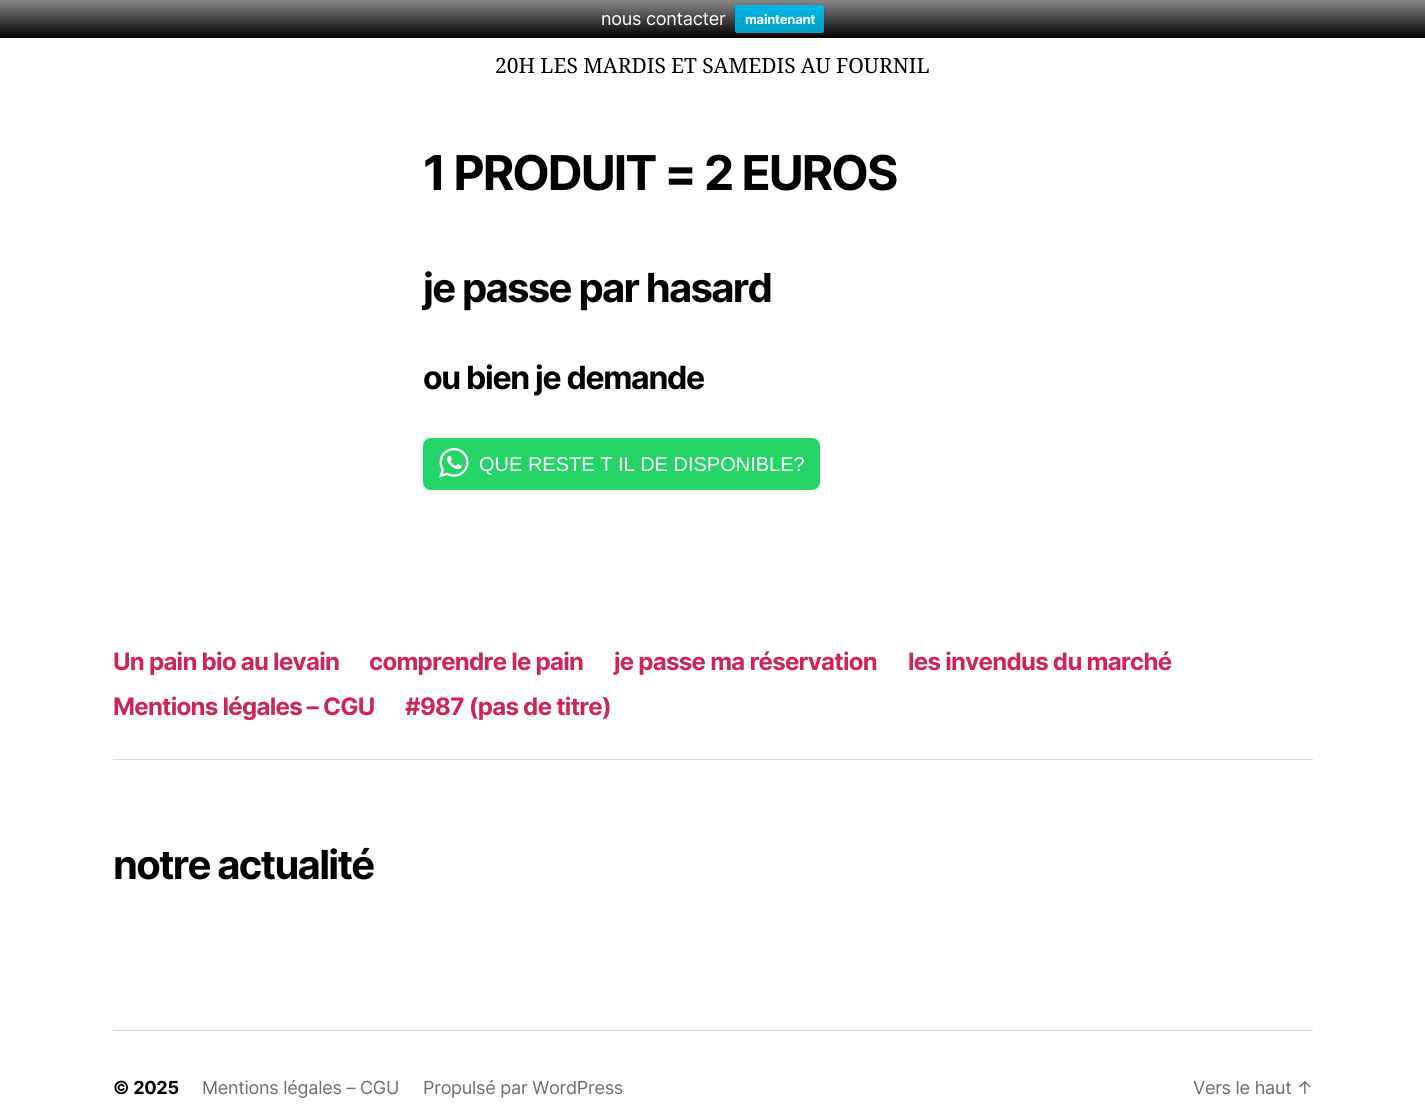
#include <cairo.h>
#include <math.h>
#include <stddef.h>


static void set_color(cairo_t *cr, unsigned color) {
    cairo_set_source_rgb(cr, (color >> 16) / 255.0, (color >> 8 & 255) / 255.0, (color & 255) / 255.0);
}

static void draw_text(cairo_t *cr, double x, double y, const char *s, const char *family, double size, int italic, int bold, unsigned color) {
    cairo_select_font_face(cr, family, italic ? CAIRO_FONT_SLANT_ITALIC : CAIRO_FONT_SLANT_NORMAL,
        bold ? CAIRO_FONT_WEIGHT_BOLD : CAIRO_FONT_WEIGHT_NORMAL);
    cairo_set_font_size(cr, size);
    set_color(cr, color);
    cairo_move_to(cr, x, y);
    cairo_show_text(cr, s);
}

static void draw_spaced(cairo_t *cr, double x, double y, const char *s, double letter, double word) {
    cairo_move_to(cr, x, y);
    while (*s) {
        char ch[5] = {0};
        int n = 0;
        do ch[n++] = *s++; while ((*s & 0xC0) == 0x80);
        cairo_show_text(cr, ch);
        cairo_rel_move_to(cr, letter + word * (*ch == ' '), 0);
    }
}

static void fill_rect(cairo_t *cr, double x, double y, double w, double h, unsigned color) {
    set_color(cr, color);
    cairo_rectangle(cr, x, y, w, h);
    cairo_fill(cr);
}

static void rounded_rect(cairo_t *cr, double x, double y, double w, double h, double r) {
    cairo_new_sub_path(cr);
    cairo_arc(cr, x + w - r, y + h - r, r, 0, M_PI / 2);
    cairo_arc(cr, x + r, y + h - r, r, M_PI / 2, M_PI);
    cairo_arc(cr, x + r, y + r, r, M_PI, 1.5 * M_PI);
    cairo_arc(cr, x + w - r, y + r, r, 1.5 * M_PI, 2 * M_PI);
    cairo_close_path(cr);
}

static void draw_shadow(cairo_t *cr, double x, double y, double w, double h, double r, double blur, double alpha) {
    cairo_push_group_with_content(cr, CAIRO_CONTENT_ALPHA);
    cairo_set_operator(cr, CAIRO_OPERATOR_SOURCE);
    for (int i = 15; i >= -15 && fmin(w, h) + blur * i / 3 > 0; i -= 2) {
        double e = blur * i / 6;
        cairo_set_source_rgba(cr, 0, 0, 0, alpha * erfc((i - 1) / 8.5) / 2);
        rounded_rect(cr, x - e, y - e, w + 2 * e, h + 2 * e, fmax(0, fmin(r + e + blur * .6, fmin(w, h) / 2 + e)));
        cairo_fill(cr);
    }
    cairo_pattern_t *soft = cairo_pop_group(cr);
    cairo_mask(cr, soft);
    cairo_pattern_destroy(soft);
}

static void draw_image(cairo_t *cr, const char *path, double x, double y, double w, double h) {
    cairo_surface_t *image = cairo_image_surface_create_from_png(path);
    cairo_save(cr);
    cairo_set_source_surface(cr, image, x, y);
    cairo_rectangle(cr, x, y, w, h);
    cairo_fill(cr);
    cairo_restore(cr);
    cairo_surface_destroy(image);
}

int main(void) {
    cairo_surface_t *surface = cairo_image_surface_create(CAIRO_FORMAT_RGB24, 1425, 1110);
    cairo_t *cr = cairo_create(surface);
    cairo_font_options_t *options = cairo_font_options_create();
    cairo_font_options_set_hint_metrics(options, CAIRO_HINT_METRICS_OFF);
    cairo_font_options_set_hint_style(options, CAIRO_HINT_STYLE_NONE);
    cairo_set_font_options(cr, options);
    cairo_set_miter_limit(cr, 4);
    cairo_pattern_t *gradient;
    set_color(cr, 0xFFFFFF);
    cairo_paint(cr);
    gradient = cairo_pattern_create_linear(713, 0, 713, 38);
    cairo_pattern_add_color_stop_rgba(gradient, 0, 0.533, 0.533, 0.533, 1);
    cairo_pattern_add_color_stop_rgba(gradient, 1, 0, 0, 0, 1);
    cairo_set_source(cr, gradient);
    cairo_pattern_destroy(gradient);
    cairo_rectangle(cr, 0, 0, 1425, 38);
    cairo_fill(cr);
    cairo_select_font_face(cr, "Inter", CAIRO_FONT_SLANT_NORMAL, CAIRO_FONT_WEIGHT_NORMAL);
    cairo_set_font_size(cr, 18);
    set_color(cr, 0xFFFFFF);
    draw_spaced(cr, 601, 25, "nous contacter", -0.25, 0);
    set_color(cr, 0x000000);
    draw_shadow(cr, 735, 6, 89, 28, 2, 1, 0.2);
    gradient = cairo_pattern_create_linear(780, 5, 780, 33);
    cairo_pattern_add_color_stop_rgba(gradient, 0, 0, 0.718, 0.918, 1);
    cairo_pattern_add_color_stop_rgba(gradient, 1, 0, 0.62, 0.765, 1);
    cairo_set_source(cr, gradient);
    cairo_pattern_destroy(gradient);
    rounded_rect(cr, 735, 5, 89, 28, 2);
    cairo_fill(cr);
    cairo_select_font_face(cr, "Inter", CAIRO_FONT_SLANT_NORMAL, CAIRO_FONT_WEIGHT_BOLD);
    cairo_set_font_size(cr, 13);
    set_color(cr, 0xFFFFFF);
    draw_spaced(cr, 745, 24, "maintenant", -0.25, 0);
    cairo_select_font_face(cr, "Noto Serif", CAIRO_FONT_SLANT_NORMAL, CAIRO_FONT_WEIGHT_NORMAL);
    cairo_set_font_size(cr, 21);
    set_color(cr, 0x000000);
    draw_spaced(cr, 495, 73, "20H LES MARDIS ET SAMEDIS AU FOURNIL", 0, -0.25);
    cairo_select_font_face(cr, "Inter", CAIRO_FONT_SLANT_NORMAL, CAIRO_FONT_WEIGHT_BOLD);
    cairo_set_font_size(cr, 48);
    draw_spaced(cr, 423, 190, "1 PRODUIT = 2 EUROS", -2, 0);
    cairo_set_font_size(cr, 40);
    draw_spaced(cr, 423, 302, "je passe par hasard", -1.7, 0);
    cairo_set_font_size(cr, 32);
    draw_spaced(cr, 423, 389, "ou bien je demande", -1.3, 0);
    set_color(cr, 0x25D366);
    rounded_rect(cr, 423, 438, 397, 52, 8);
    cairo_fill(cr);
    draw_image(cr, "assets/img1.png", 439, 448, 30, 30);
    draw_text(cr, 479, 471, "QUE RESTE T IL DE DISPONIBLE?", "Liberation Sans", 20, 0, 0, 0xFFFFFF);
    fill_rect(cr, 113, 759, 1200, 1, 0xDCD7CA);
    cairo_select_font_face(cr, "Inter", CAIRO_FONT_SLANT_NORMAL, CAIRO_FONT_WEIGHT_BOLD);
    cairo_set_font_size(cr, 24);
    set_color(cr, 0xCD2653);
    draw_spaced(cr, 113, 670, "Un pain bio au levain", -0.7, 0);
    draw_spaced(cr, 369, 670, "comprendre le pain", -0.7, 0);
    draw_spaced(cr, 614, 670, "je passe ma réservation", -0.7, 0);
    draw_spaced(cr, 908, 670, "les invendus du marché", -0.7, 0);
    draw_spaced(cr, 113, 715, "Mentions légales – CGU", -0.7, 0);
    draw_spaced(cr, 405, 715, "#987 (pas de titre)", -0.7, 0);
    fill_rect(cr, 113, 1030, 1200, 1, 0xDCD7CA);
    cairo_set_font_size(cr, 40);
    set_color(cr, 0x000000);
    draw_spaced(cr, 113, 879, "notre actualité", -1.7, 0);
    cairo_set_font_size(cr, 18);
    draw_spaced(cr, 113, 1094, "© 2025", -0.25, 0);
    cairo_select_font_face(cr, "Inter", CAIRO_FONT_SLANT_NORMAL, CAIRO_FONT_WEIGHT_NORMAL);
    set_color(cr, 0x6D6D6D);
    draw_spaced(cr, 202, 1094, "Mentions légales – CGU", -0.25, 0);
    draw_spaced(cr, 423, 1094, "Propulsé par WordPress", -0.25, 0);
    draw_spaced(cr, 1193, 1094, "Vers le haut ↑", -0.25, 0);
    cairo_surface_write_to_png(surface, "output.png");
    cairo_font_options_destroy(options);
    cairo_destroy(cr);
    cairo_surface_destroy(surface);
    return 0;
}
